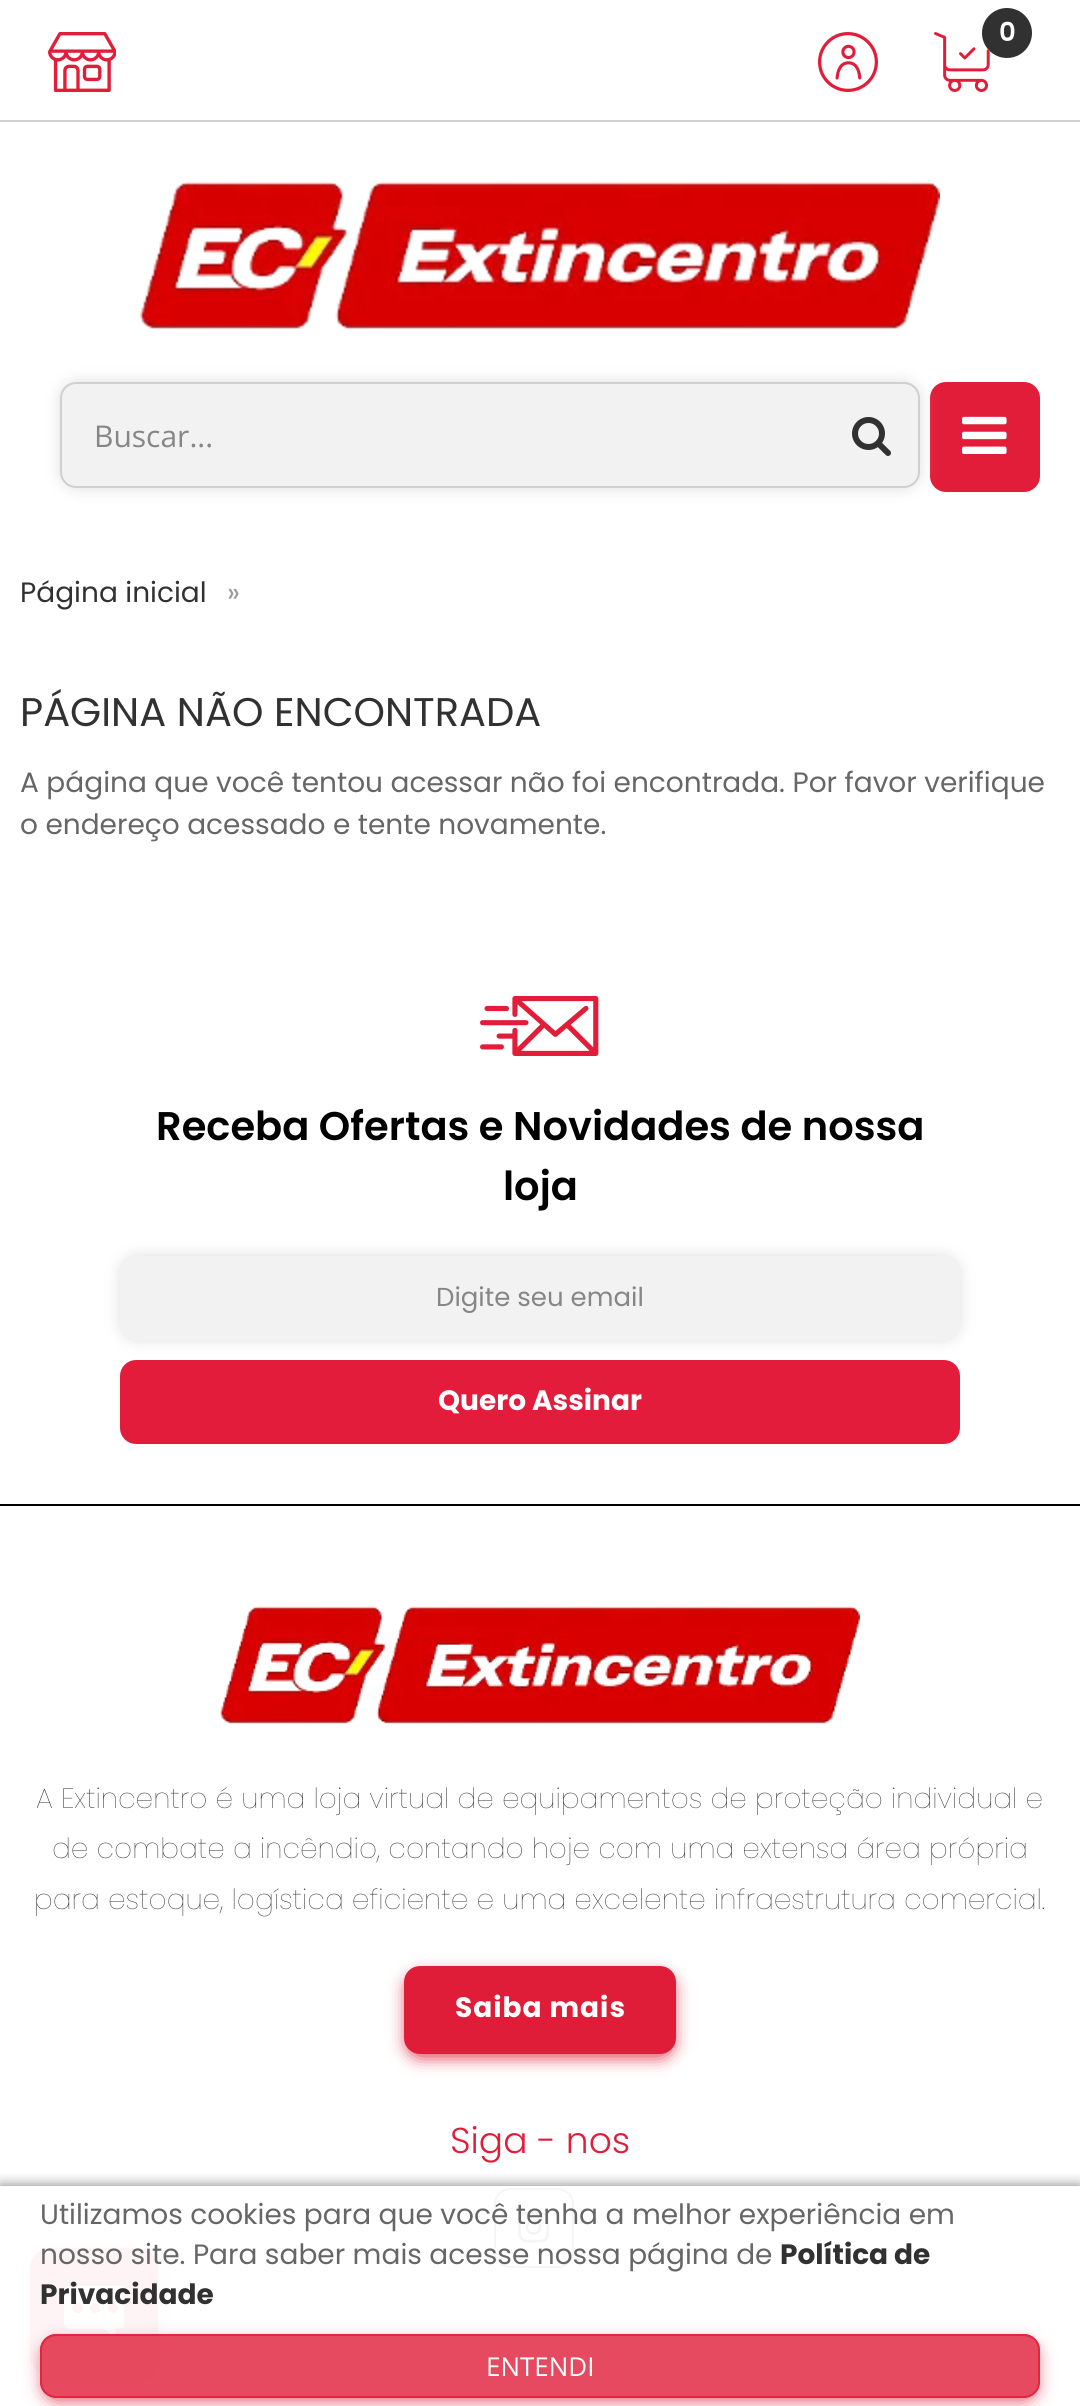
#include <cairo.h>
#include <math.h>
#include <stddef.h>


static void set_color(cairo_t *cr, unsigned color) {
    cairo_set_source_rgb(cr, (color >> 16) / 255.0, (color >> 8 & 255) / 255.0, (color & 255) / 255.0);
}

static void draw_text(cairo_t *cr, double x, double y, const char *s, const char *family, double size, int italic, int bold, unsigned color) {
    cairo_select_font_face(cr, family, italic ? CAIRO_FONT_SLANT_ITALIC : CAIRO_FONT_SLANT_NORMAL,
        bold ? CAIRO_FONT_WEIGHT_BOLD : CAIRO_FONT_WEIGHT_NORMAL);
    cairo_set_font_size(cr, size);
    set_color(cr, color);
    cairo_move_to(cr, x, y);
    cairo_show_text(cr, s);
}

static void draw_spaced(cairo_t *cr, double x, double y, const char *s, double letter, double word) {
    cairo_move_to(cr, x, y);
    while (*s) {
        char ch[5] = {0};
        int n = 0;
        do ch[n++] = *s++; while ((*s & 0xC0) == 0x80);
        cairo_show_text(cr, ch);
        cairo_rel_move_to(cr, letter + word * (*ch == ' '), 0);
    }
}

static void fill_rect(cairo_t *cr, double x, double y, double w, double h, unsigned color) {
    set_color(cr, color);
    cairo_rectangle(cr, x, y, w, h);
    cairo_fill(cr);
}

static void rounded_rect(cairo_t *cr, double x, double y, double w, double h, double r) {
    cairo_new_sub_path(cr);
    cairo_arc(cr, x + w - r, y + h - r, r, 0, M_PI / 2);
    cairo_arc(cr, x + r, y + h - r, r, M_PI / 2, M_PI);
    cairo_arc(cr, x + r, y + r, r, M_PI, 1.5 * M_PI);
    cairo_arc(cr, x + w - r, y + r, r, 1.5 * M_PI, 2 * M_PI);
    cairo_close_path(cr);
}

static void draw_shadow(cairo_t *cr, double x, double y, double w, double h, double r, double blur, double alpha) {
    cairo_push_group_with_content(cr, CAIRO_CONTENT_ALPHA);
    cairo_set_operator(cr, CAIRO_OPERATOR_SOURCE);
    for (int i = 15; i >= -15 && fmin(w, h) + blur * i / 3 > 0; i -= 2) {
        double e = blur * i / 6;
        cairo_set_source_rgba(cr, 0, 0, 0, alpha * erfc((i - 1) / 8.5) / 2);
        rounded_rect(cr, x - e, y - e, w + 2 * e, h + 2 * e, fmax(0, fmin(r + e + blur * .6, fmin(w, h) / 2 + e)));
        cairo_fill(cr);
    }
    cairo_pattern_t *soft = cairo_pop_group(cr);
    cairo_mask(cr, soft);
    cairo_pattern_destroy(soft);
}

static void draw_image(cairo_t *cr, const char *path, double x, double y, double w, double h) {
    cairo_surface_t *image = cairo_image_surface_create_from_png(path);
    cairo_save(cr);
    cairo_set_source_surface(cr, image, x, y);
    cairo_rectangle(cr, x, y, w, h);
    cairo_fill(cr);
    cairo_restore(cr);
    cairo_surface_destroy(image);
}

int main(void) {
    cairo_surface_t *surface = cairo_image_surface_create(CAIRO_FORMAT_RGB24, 1080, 2406);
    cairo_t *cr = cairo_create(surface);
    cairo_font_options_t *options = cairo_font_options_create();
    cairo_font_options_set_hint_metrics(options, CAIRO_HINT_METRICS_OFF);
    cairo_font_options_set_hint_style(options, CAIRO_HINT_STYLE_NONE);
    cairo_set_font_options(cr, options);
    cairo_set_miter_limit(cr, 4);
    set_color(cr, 0xFFFFFF);
    cairo_paint(cr);
    fill_rect(cr, 0, 120, 1080, 2, 0xD0D0D0);
    draw_image(cr, "assets/img1.png", 48, 32, 68, 60);
    draw_image(cr, "assets/img2.png", 818, 32, 60, 60);
    set_color(cr, 0x313131);
    cairo_arc(cr, 1007, 33, 25, 0, 2 * M_PI);
    cairo_fill(cr);
    draw_image(cr, "assets/img3.png", 934, 32, 56, 60);
    draw_text(cr, 999, 41, "0", "Poppins SemiBold", 26, 0, 0, 0xFFFFFF);
    draw_image(cr, "assets/img4.png", 140, 181, 800, 148);
    set_color(cr, 0xE11D39);
    rounded_rect(cr, 930, 382, 110, 110, 16);
    cairo_fill(cr);
    set_color(cr, 0xCCCCCC);
    draw_shadow(cr, 64, 386, 852, 98, 12, 9, 1);
    set_color(cr, 0xF2F2F2);
    rounded_rect(cr, 61, 383, 858, 104, 15);
    cairo_fill_preserve(cr);
    set_color(cr, 0xD0D0D0);
    cairo_stroke(cr);
    draw_text(cr, 94, 447, "Buscar...", "Open Sans", 30, 0, 0, 0x868686);
    draw_image(cr, "assets/img5.png", 852, 417, 39, 39);
    draw_image(cr, "assets/img6.png", 962, 416, 45, 38);
    draw_text(cr, 20, 602, "Página inicial", "Poppins", 28, 0, 0, 0x313131);
    draw_text(cr, 227, 602, "»", "Poppins", 28, 0, 0, 0x999999);
    draw_text(cr, 20, 726, "PÁGINA NÃO ENCONTRADA", "Poppins", 40, 0, 0, 0x313131);
    draw_text(cr, 20, 792, "A página que você tentou acessar não foi encontrada. Por favor verifique", "Poppins", 28, 0, 0, 0x666666);
    draw_text(cr, 20, 834, "o endereço acessado e tente novamente.", "Poppins", 28, 0, 0, 0x666666);
    fill_rect(cr, 0, 1504, 1080, 2, 0x000000);
    draw_image(cr, "assets/img7.png", 480, 996, 119, 60);
    draw_text(cr, 156, 1140, "Receba Ofertas e Novidades de nossa", "Poppins SemiBold", 40, 0, 0, 0x000000);
    draw_text(cr, 503, 1200, "loja", "Poppins SemiBold", 40, 0, 0, 0x000000);
    set_color(cr, 0xCCCCCC);
    draw_shadow(cr, 124, 1260, 832, 76, 12, 9, 1);
    set_color(cr, 0xF2F2F2);
    rounded_rect(cr, 120, 1256, 840, 84, 16);
    cairo_fill(cr);
    draw_text(cr, 436, 1306, "Digite seu email", "Poppins", 26, 0, 0, 0x868686);
    set_color(cr, 0xE41C3C);
    rounded_rect(cr, 122, 1362, 836, 80, 14);
    cairo_fill_preserve(cr);
    cairo_set_line_width(cr, 4);
    cairo_stroke(cr);
    draw_text(cr, 438, 1410, "Quero Assinar", "Poppins", 28, 0, 1, 0xFFFFFF);
    draw_image(cr, "assets/img8.png", 220, 1606, 640, 118);
    draw_text(cr, 36, 1808, "A Extincentro é uma loja virtual de equipamentos de proteção individual e", "Poppins ExtraLight", 28, 0, 0, 0x313131);
    draw_text(cr, 52, 1858, "de combate a incêndio, contando hoje com uma extensa área própria", "Poppins ExtraLight", 28, 0, 0, 0x313131);
    draw_text(cr, 34, 1909, "para estoque, logística eficiente e uma excelente infraestrutura comercial.", "Poppins ExtraLight", 28, 0, 0, 0x313131);
    set_color(cr, 0xDF1D39);
    draw_shadow(cr, 408, 1976, 264, 80, 12, 9, 1);
    set_color(cr, 0xE01D39);
    rounded_rect(cr, 406, 1968, 268, 84, 14);
    cairo_fill_preserve(cr);
    cairo_stroke(cr);
    cairo_select_font_face(cr, "Poppins", CAIRO_FONT_SLANT_NORMAL, CAIRO_FONT_WEIGHT_BOLD);
    set_color(cr, 0xFFFFFF);
    draw_spaced(cr, 455, 2017, "Saiba mais", 1, 0);
    draw_text(cr, 450, 2153, "Siga - nos", "Poppins Light", 36, 0, 0, 0xE11D39);
    rounded_rect(cr, 495, 2189, 78, 78, 15);
    set_color(cr, 0xF5F5F5);
    cairo_set_line_width(cr, 2);
    cairo_stroke(cr);
    draw_image(cr, "assets/img9.png", 518, 2211, 32, 32);
    set_color(cr, 0xFEF4F5);
    draw_shadow(cr, 34, 2258, 120, 120, 16, 9, 1);
    set_color(cr, 0xFEF4F5);
    rounded_rect(cr, 30, 2248, 128, 128, 20);
    cairo_fill(cr);
    draw_image(cr, "assets/img10.png", 64, 2286, 60, 52);
    cairo_save(cr);
    cairo_rectangle(cr, 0, 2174, 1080, 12);
    cairo_clip(cr);
    set_color(cr, 0x000000);
    draw_shadow(cr, 0, 2186, 1080, 220, 0, 7, 0.5);
    cairo_restore(cr);
    draw_text(cr, 40, 2224, "Utilizamos cookies para que você tenha a melhor experiência em", "Poppins", 28, 0, 0, 0x666666);
    draw_text(cr, 40, 2264, "nosso site. Para saber mais acesse nossa página de", "Poppins", 28, 0, 0, 0x666666);
    draw_text(cr, 780, 2264, "Política de", "Poppins", 28, 0, 1, 0x313131);
    draw_text(cr, 40, 2304, "Privacidade", "Poppins", 28, 0, 1, 0x313131);
    cairo_save(cr);
    cairo_set_fill_rule(cr, CAIRO_FILL_RULE_EVEN_ODD);
    cairo_new_path(cr);
    cairo_move_to(cr, 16, 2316);
    cairo_line_to(cr, 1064, 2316);
    cairo_line_to(cr, 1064, 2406);
    cairo_line_to(cr, 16, 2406);
    cairo_close_path(cr);
    cairo_move_to(cr, 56, 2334);
    cairo_line_to(cr, 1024, 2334);
    cairo_curve_to(cr, 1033, 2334, 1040, 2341, 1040, 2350);
    cairo_line_to(cr, 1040, 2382);
    cairo_curve_to(cr, 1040, 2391, 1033, 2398, 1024, 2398);
    cairo_line_to(cr, 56, 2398);
    cairo_curve_to(cr, 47, 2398, 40, 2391, 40, 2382);
    cairo_line_to(cr, 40, 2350);
    cairo_curve_to(cr, 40, 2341, 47, 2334, 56, 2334);
    cairo_close_path(cr);
    cairo_clip(cr);
    set_color(cr, 0xDF1D39);
    draw_shadow(cr, 44, 2344, 992, 56, 12, 9, 0.8);
    cairo_restore(cr);
    cairo_set_source_rgba(cr, 0.878, 0.114, 0.224, 0.8);
    rounded_rect(cr, 40, 2334, 1000, 64, 16);
    cairo_fill(cr);
    rounded_rect(cr, 41, 2335, 998, 62, 15);
    cairo_stroke(cr);
    draw_text(cr, 486, 2376, "ENTENDI", "Open Sans", 26, 0, 0, 0xFFFFFF);
    cairo_surface_write_to_png(surface, "output.png");
    cairo_font_options_destroy(options);
    cairo_destroy(cr);
    cairo_surface_destroy(surface);
    return 0;
}
